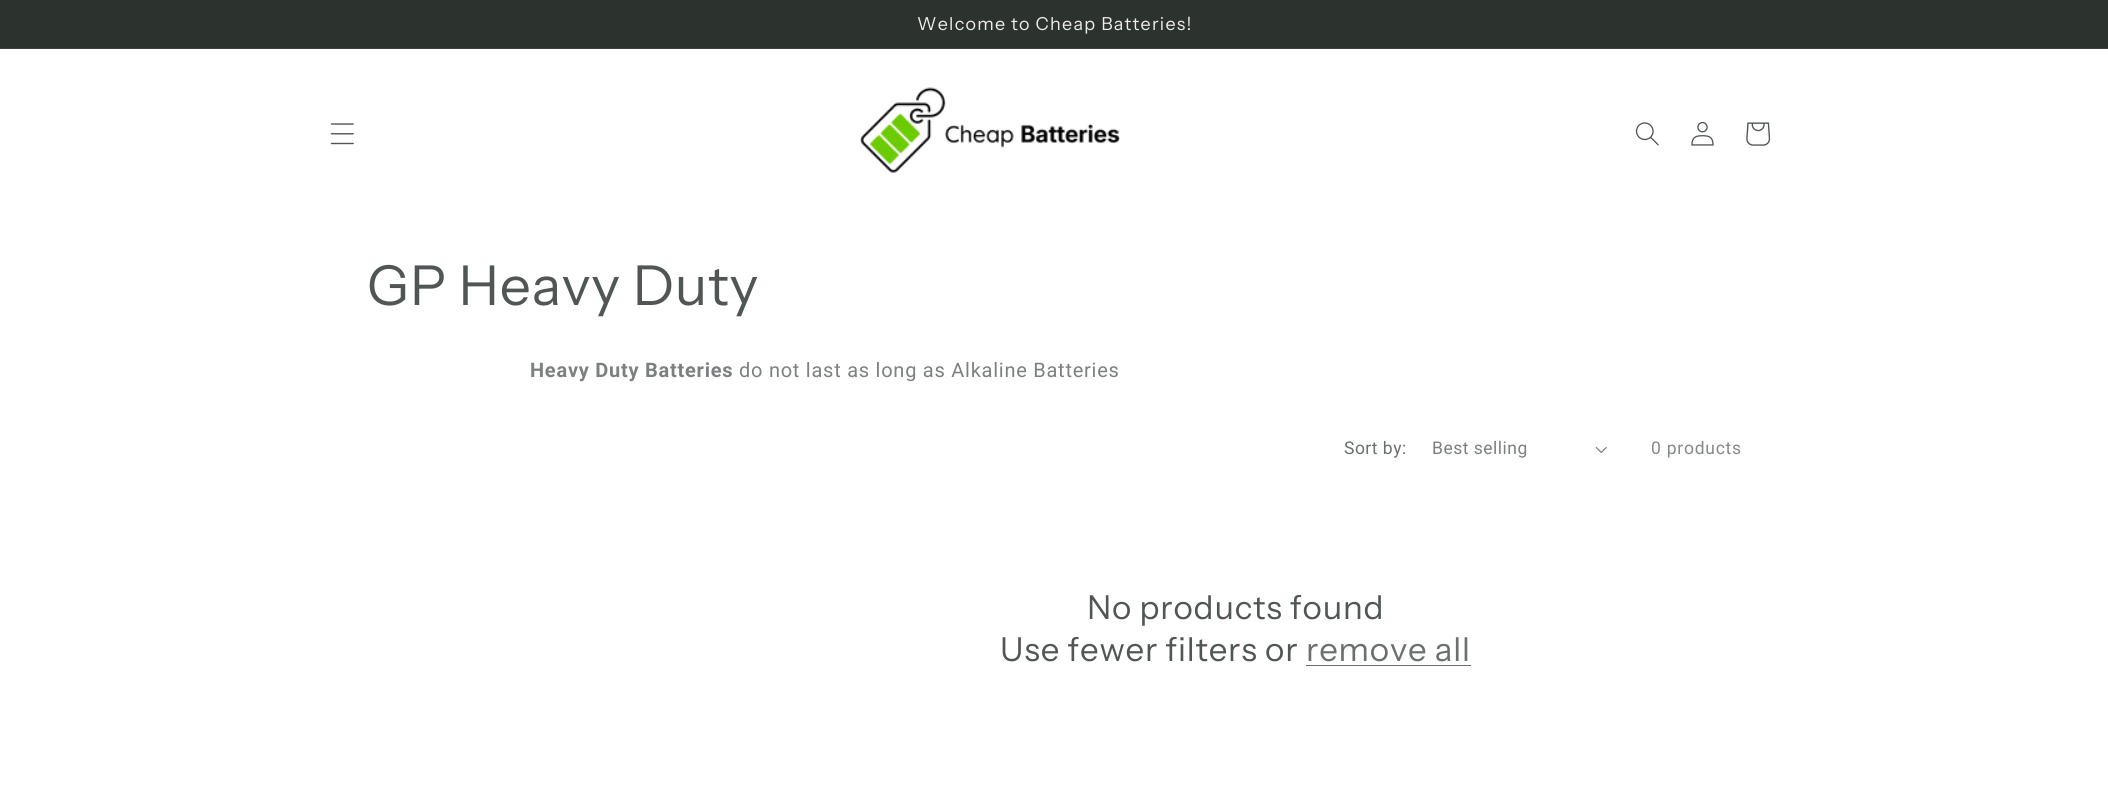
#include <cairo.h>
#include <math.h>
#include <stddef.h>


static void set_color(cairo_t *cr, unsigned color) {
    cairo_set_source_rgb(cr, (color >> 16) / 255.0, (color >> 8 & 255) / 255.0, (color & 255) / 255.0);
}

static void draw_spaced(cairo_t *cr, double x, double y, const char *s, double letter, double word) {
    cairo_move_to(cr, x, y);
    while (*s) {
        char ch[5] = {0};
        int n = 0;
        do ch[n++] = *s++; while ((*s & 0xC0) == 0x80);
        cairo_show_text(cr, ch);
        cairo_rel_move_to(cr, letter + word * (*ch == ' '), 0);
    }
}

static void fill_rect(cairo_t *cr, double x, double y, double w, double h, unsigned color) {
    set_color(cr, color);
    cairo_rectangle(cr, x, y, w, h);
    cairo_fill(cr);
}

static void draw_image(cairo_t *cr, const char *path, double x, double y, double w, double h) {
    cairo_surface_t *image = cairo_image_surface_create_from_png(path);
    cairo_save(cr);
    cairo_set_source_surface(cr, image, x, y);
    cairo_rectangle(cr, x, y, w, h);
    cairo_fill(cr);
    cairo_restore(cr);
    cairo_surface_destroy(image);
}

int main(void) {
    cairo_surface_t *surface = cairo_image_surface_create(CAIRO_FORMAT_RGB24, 2108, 788);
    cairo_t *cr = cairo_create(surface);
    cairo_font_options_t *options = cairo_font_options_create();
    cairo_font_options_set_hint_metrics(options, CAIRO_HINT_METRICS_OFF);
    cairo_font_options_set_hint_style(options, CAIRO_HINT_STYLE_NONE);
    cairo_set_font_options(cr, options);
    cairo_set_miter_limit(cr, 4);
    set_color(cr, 0xFFFFFF);
    cairo_paint(cr);
    fill_rect(cr, 0, 0, 2108, 48, 0x2C332F);
    fill_rect(cr, 0, 48, 2108, 1, 0x3C423E);
    cairo_select_font_face(cr, "Instrument Sans", CAIRO_FONT_SLANT_NORMAL, CAIRO_FONT_WEIGHT_NORMAL);
    cairo_set_font_size(cr, 17.9);
    set_color(cr, 0xEFECEC);
    draw_spaced(cr, 917, 30, "Welcome to Cheap Batteries!", 1.25, 0);
    draw_image(cr, "assets/img1.png", 330, 123, 24, 22);
    draw_image(cr, "assets/img2.png", 860, 87, 261, 86);
    draw_image(cr, "assets/img3.png", 1635, 122, 24, 24);
    draw_image(cr, "assets/img4.png", 1691, 121, 23, 25);
    draw_image(cr, "assets/img5.png", 1746, 122, 25, 24);
    cairo_set_font_size(cr, 55);
    set_color(cr, 0x505655);
    draw_spaced(cr, 367, 305, "GP Heavy Duty", 0.8, 0);
    cairo_select_font_face(cr, "Roboto", CAIRO_FONT_SLANT_NORMAL, CAIRO_FONT_WEIGHT_BOLD);
    cairo_set_font_size(cr, 20);
    set_color(cr, 0x7C8080);
    draw_spaced(cr, 530, 377, "Heavy Duty Batteries", 0.75, 0);
    cairo_select_font_face(cr, "Roboto", CAIRO_FONT_SLANT_NORMAL, CAIRO_FONT_WEIGHT_NORMAL);
    draw_spaced(cr, 739, 377, "do not last as long as Alkaline Batteries", 0.75, 0);
    cairo_set_font_size(cr, 17.5);
    set_color(cr, 0x6A6F6F);
    draw_spaced(cr, 1344, 454, "Sort by:", 0.5, 0);
    set_color(cr, 0x7C8080);
    draw_spaced(cr, 1432, 454, "Best selling", 0.5, 0);
    draw_image(cr, "assets/img6.png", 1595, 446, 12, 8);
    set_color(cr, 0x858988);
    draw_spaced(cr, 1651, 454, "0 products", 0.75, 0);
    cairo_select_font_face(cr, "Instrument Sans", CAIRO_FONT_SLANT_NORMAL, CAIRO_FONT_WEIGHT_NORMAL);
    cairo_set_font_size(cr, 33);
    set_color(cr, 0x505655);
    draw_spaced(cr, 1087, 619, "No products found", 0.8, 0);
    draw_spaced(cr, 1000, 661, "Use fewer filters or", 0.8, 0);
    set_color(cr, 0x6A6F6F);
    draw_spaced(cr, 1306, 661, "remove all", 0.8, 0);
    fill_rect(cr, 1306, 665, 165, 1, 0x6A6F6F);
    cairo_surface_write_to_png(surface, "output.png");
    cairo_font_options_destroy(options);
    cairo_destroy(cr);
    cairo_surface_destroy(surface);
    return 0;
}
